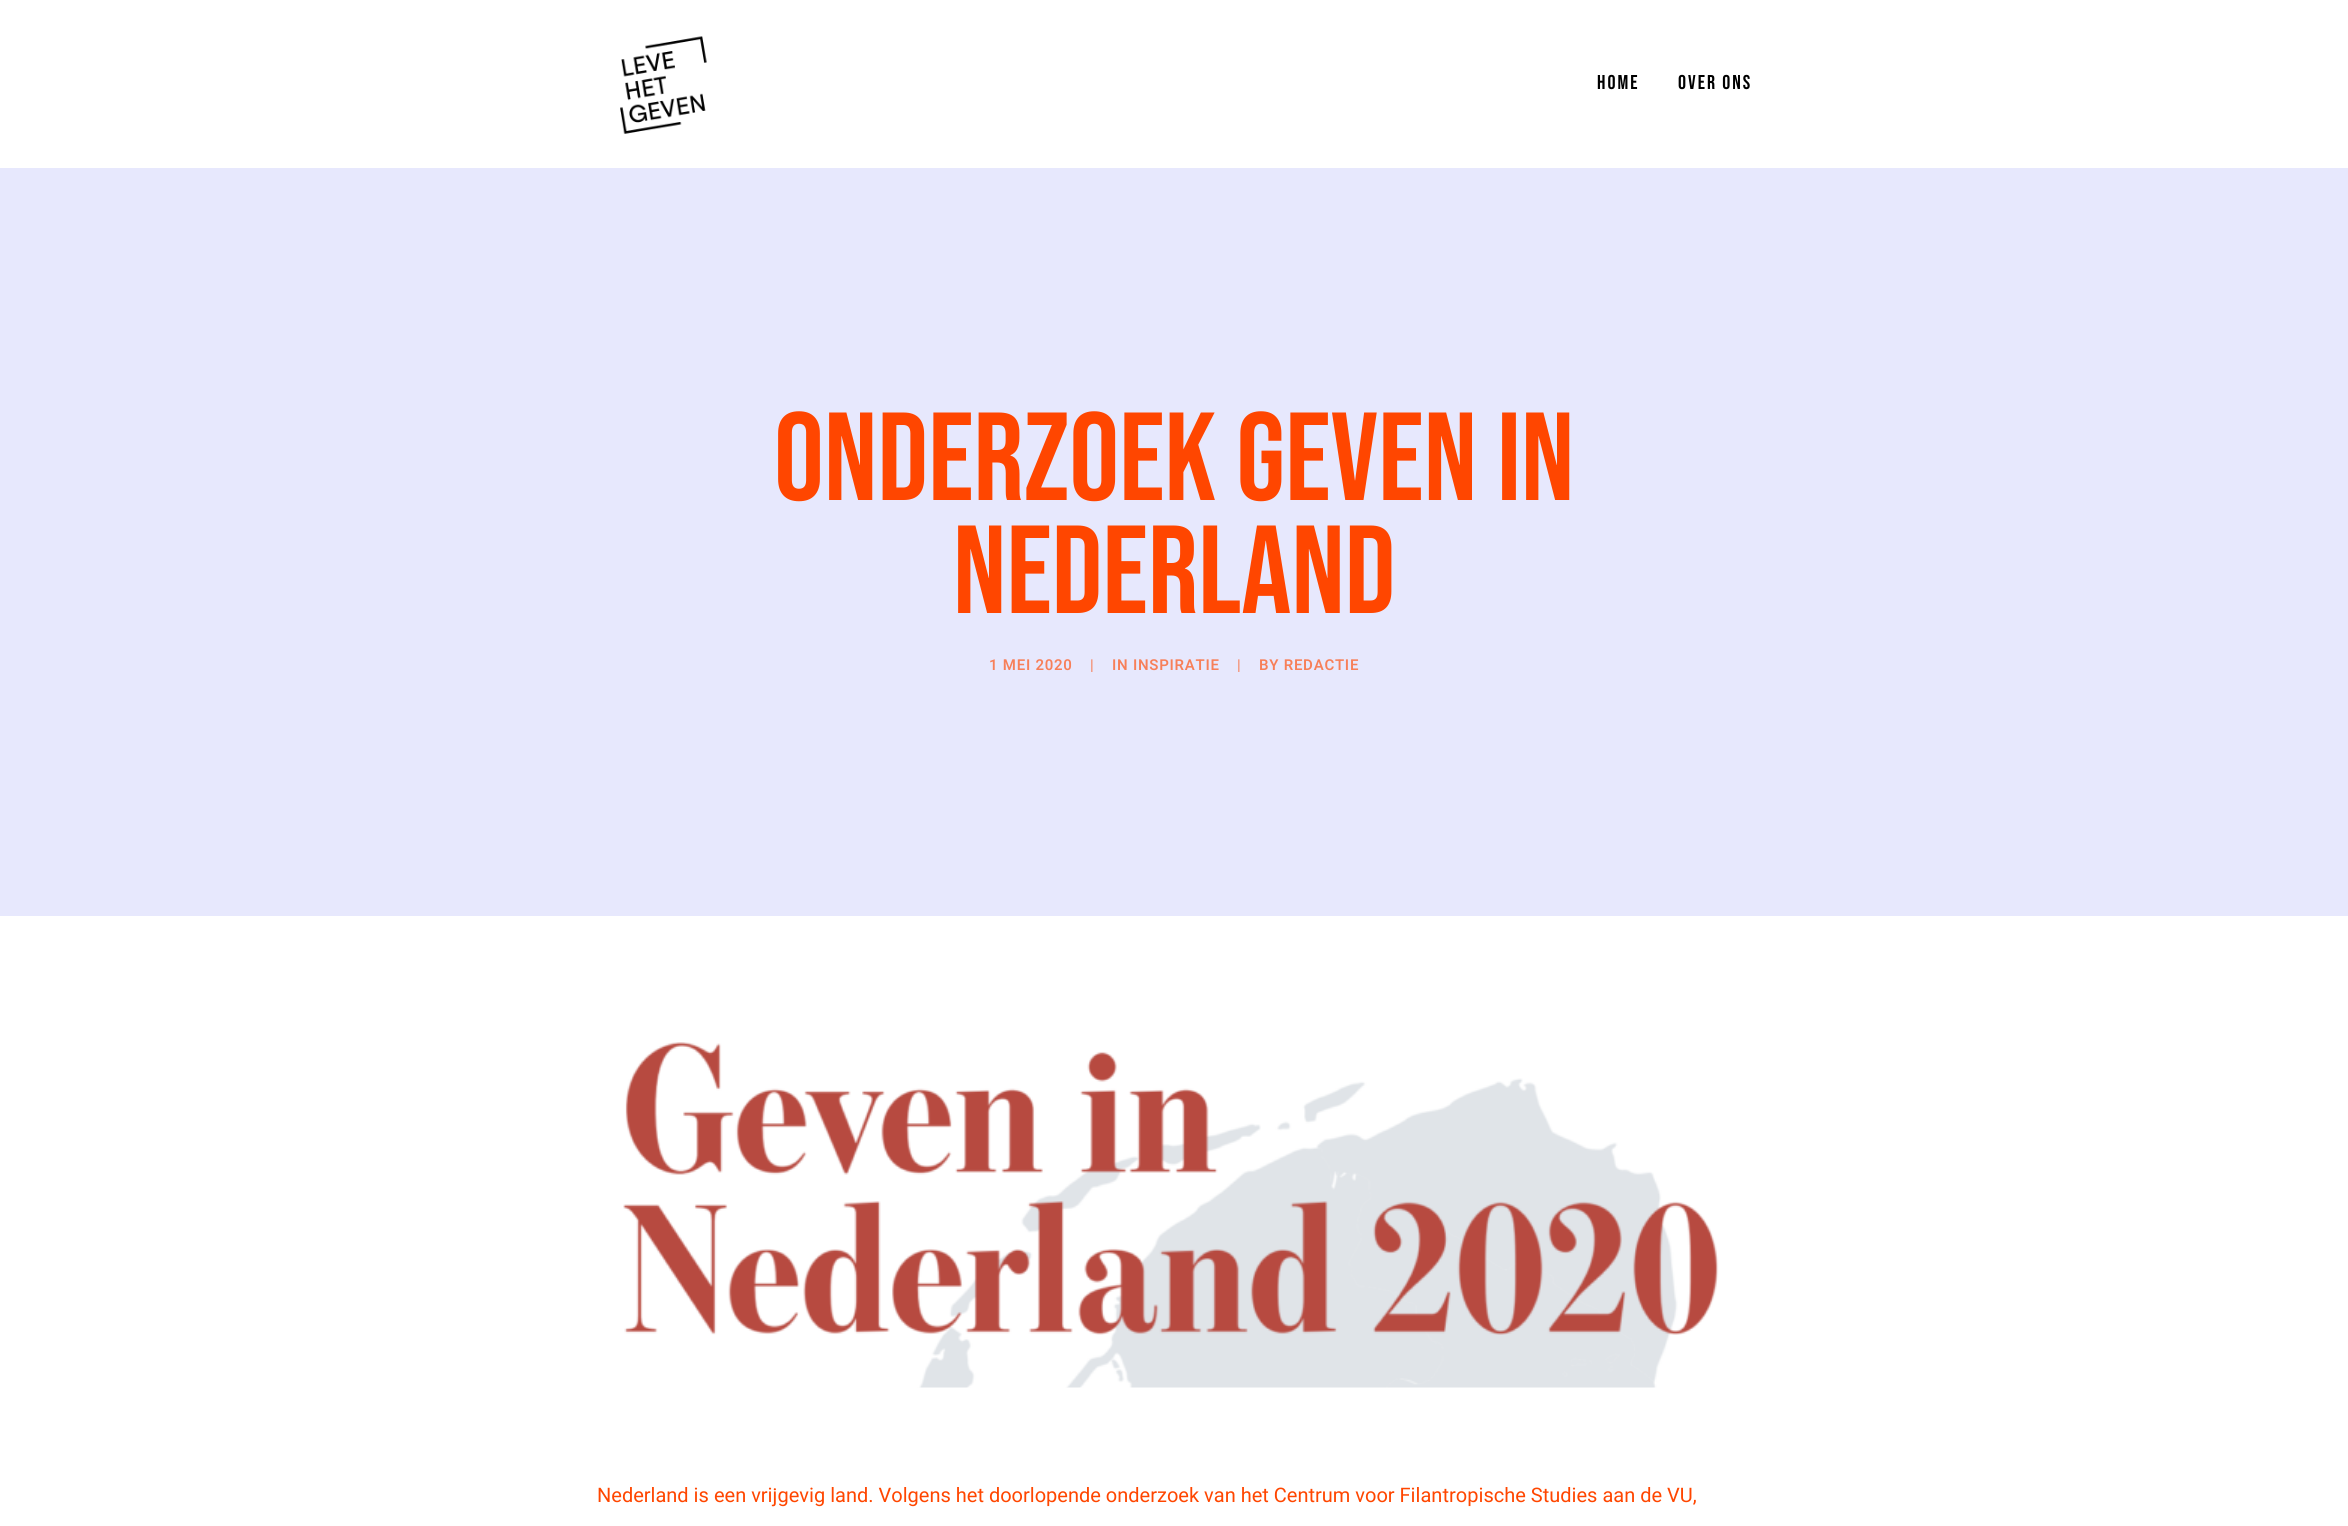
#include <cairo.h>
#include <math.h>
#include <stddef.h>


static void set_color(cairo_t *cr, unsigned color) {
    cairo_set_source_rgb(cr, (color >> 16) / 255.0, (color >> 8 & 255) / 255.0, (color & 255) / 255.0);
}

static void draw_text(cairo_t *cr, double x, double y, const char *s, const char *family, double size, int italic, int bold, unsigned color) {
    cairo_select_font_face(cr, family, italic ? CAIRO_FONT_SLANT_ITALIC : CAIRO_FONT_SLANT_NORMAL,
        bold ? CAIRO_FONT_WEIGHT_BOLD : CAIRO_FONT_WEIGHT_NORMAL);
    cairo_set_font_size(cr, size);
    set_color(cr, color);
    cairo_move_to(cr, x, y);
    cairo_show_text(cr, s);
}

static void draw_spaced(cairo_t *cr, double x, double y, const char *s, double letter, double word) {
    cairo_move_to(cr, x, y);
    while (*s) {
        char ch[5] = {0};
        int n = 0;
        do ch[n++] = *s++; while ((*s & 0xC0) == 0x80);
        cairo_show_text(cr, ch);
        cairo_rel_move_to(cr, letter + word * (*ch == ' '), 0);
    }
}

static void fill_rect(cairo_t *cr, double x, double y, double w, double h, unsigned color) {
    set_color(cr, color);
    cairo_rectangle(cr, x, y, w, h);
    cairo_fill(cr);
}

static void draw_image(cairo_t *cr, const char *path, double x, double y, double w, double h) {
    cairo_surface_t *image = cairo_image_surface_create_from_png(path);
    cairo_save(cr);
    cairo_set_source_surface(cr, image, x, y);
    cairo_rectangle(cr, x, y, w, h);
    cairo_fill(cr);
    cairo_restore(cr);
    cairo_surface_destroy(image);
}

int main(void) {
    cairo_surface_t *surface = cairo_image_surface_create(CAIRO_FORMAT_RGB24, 2348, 1526);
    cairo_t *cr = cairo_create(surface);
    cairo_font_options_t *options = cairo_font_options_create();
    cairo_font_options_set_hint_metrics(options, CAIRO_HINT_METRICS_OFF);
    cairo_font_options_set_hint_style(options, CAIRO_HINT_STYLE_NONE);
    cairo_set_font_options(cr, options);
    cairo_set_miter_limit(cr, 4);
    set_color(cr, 0xFFFFFF);
    cairo_paint(cr);
    draw_image(cr, "assets/img1.png", 620, 36, 87, 98);
    cairo_select_font_face(cr, "Bebas Neue", CAIRO_FONT_SLANT_NORMAL, CAIRO_FONT_WEIGHT_NORMAL);
    cairo_set_font_size(cr, 20);
    set_color(cr, 0x000000);
    draw_spaced(cr, 1597, 89, "Home", 2, 0);
    draw_spaced(cr, 1678, 89, "Over ons", 2, 0);
    fill_rect(cr, 0, 168, 2348, 748, 0xE7E8FD);
    draw_text(cr, 774, 500, "Onderzoek geven in", "Bebas Neue", 125, 0, 0, 0xFF4600);
    draw_text(cr, 953, 613, "Nederland", "Bebas Neue", 125, 0, 0, 0xFF4600);
    cairo_select_font_face(cr, "Heebo SemiBold", CAIRO_FONT_SLANT_NORMAL, CAIRO_FONT_WEIGHT_NORMAL);
    cairo_set_font_size(cr, 15);
    set_color(cr, 0xF77F59);
    draw_spaced(cr, 989, 670, "1 MEI 2020", 0.75, 0);
    cairo_select_font_face(cr, "Heebo", CAIRO_FONT_SLANT_NORMAL, CAIRO_FONT_WEIGHT_NORMAL);
    draw_spaced(cr, 1090, 670, "|", 0.75, 0);
    cairo_select_font_face(cr, "Heebo SemiBold", CAIRO_FONT_SLANT_NORMAL, CAIRO_FONT_WEIGHT_NORMAL);
    draw_spaced(cr, 1112, 670, "IN INSPIRATIE", 0.75, 0);
    cairo_select_font_face(cr, "Heebo", CAIRO_FONT_SLANT_NORMAL, CAIRO_FONT_WEIGHT_NORMAL);
    draw_spaced(cr, 1237, 670, "|", 0.75, 0);
    cairo_select_font_face(cr, "Heebo SemiBold", CAIRO_FONT_SLANT_NORMAL, CAIRO_FONT_WEIGHT_NORMAL);
    draw_spaced(cr, 1259, 670, "BY REDACTIE", 0.75, 0);
    draw_image(cr, "assets/img2.png", 623, 1042, 1096, 346);
    draw_text(cr, 597, 1502, "Nederland is een vrijgevig land. Volgens het doorlopende onderzoek van het Centrum voor Filantropische Studies aan de VU,", "Heebo", 20, 0, 0, 0xFF4600);
    cairo_surface_write_to_png(surface, "output.png");
    cairo_font_options_destroy(options);
    cairo_destroy(cr);
    cairo_surface_destroy(surface);
    return 0;
}
